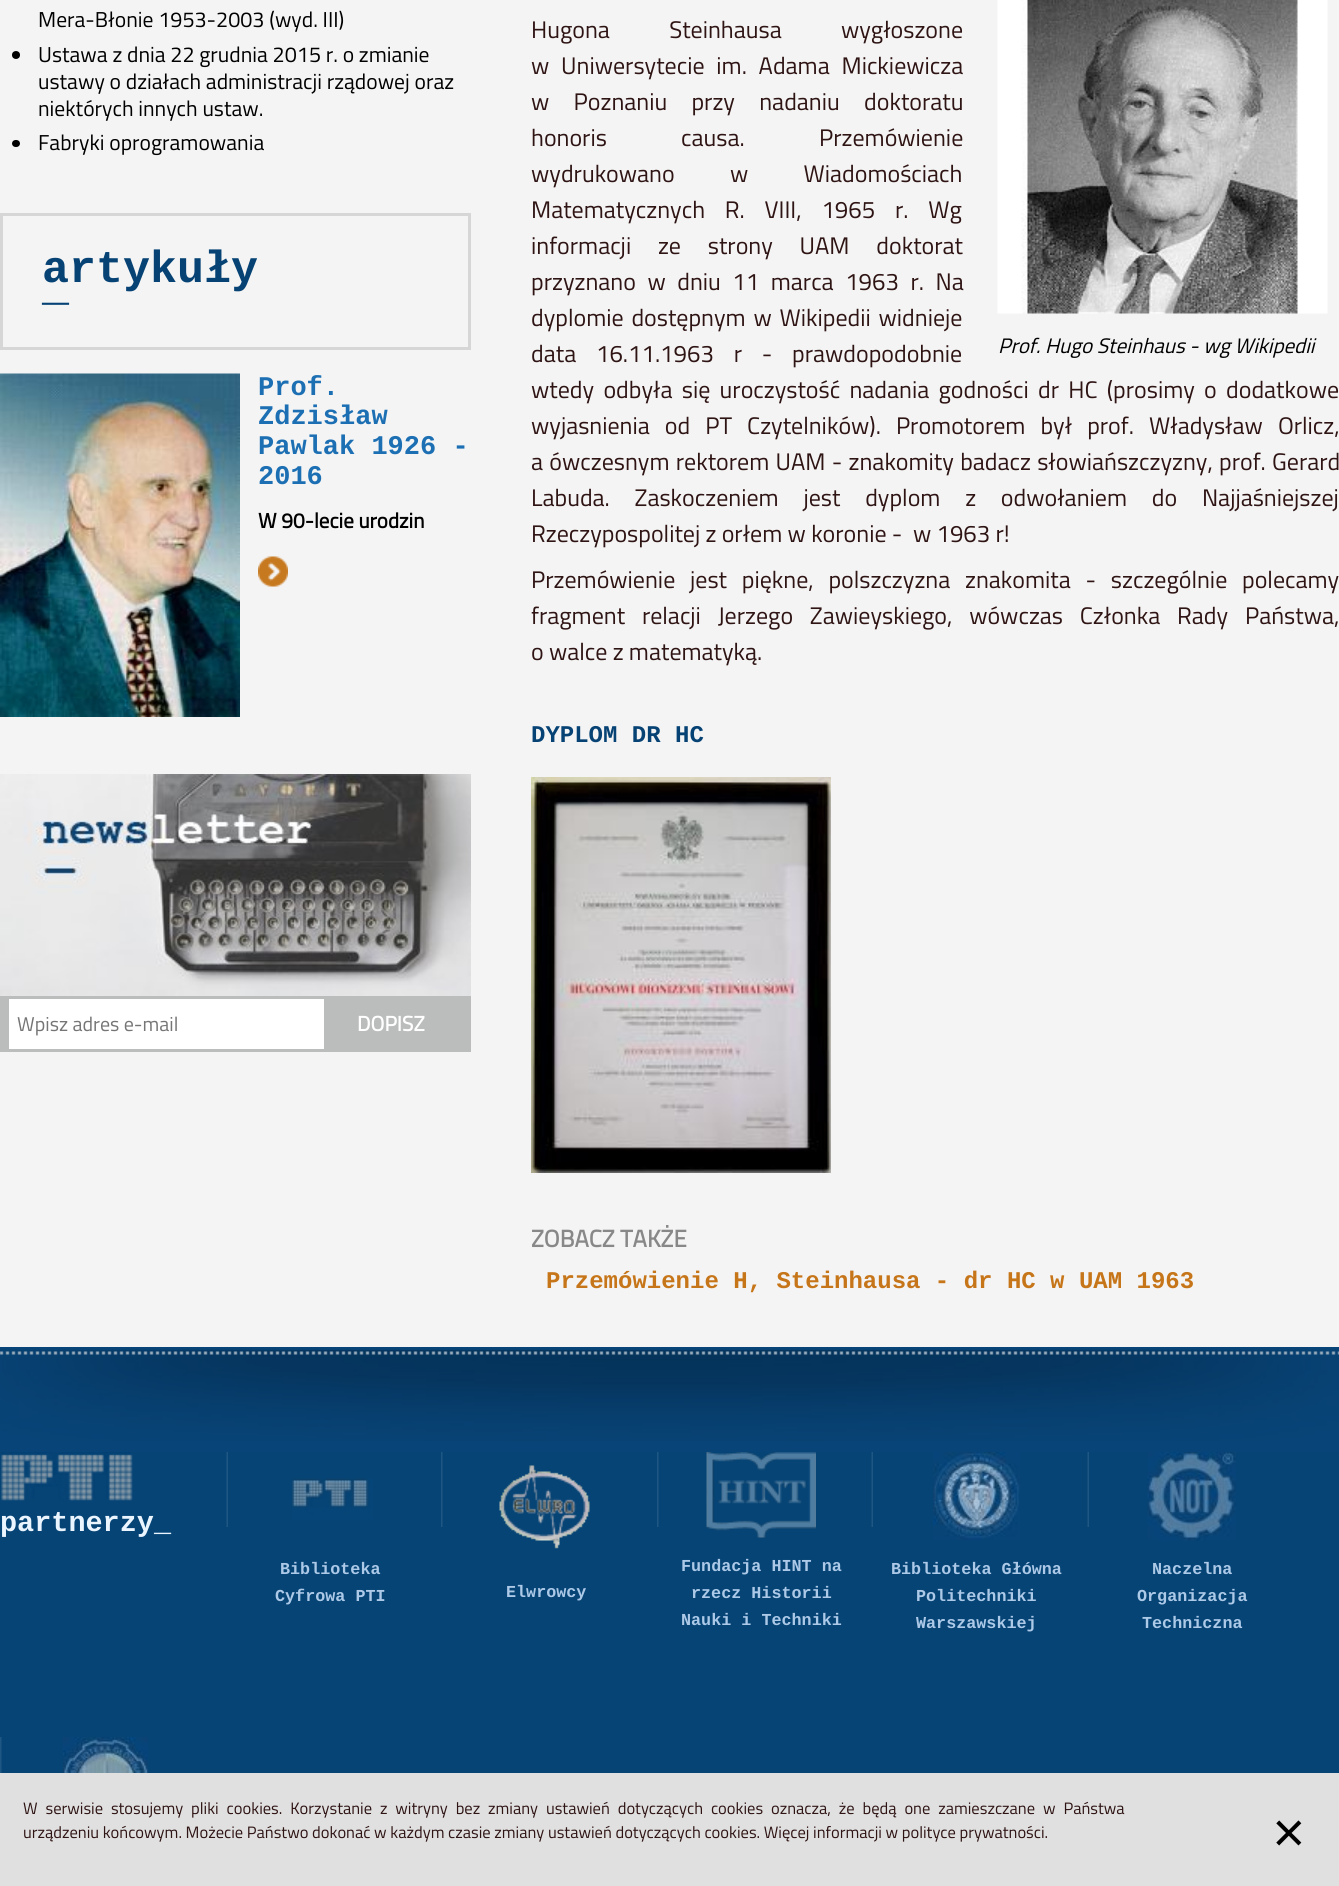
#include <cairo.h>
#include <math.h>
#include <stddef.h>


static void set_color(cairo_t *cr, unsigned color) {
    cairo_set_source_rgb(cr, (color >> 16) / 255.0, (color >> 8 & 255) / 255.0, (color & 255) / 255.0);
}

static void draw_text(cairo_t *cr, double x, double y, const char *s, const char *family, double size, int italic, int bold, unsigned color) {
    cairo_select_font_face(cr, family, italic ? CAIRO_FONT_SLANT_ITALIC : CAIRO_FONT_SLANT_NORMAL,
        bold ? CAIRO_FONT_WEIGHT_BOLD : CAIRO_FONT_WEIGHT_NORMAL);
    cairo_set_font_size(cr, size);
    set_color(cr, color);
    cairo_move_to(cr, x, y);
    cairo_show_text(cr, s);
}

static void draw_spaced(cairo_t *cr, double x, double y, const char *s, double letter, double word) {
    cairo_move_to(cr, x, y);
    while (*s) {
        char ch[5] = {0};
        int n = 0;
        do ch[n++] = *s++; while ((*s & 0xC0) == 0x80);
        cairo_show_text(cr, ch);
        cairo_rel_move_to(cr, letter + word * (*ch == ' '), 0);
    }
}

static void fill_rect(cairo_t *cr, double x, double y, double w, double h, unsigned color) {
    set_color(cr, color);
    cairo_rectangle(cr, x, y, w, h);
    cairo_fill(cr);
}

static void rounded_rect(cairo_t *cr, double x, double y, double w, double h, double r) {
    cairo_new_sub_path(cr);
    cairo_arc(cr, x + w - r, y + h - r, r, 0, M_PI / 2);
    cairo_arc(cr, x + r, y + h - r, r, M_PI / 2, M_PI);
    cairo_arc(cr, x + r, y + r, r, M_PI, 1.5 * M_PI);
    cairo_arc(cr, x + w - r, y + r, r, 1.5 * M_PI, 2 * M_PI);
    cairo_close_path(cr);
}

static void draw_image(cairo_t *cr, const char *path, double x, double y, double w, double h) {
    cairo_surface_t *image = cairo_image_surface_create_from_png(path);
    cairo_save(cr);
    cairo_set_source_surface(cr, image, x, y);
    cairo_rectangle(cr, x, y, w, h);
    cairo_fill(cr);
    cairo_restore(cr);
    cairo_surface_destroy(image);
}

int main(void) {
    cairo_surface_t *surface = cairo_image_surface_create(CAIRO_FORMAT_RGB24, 1339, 1886);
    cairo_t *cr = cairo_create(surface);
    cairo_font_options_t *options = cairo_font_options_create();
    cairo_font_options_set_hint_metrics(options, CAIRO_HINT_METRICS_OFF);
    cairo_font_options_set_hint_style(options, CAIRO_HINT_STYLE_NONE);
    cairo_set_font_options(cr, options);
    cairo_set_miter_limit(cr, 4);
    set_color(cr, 0xF4F4F4);
    cairo_paint(cr);
    draw_text(cr, 38, 27, "Mera-Błonie 1953-2003 (wyd. III)", "Titillium Web", 21.6, 0, 0, 0x000000);
    cairo_new_path(cr);
    cairo_arc(cr, 16, 55, 4, 0, 2 * M_PI);
    cairo_fill(cr);
    draw_text(cr, 38, 62, "Ustawa z dnia 22 grudnia 2015 r. o zmianie", "Titillium Web", 21.6, 0, 0, 0x000000);
    draw_text(cr, 38, 89, "ustawy o działach administracji rządowej oraz", "Titillium Web", 21.6, 0, 0, 0x000000);
    draw_text(cr, 38, 116, "niektórych innych ustaw.", "Titillium Web", 21.6, 0, 0, 0x000000);
    rounded_rect(cr, 12, 140, 8, 7, 3.5);
    cairo_fill(cr);
    draw_text(cr, 38, 150, "Fabryki oprogramowania", "Titillium Web", 21.6, 0, 0, 0x000000);
    cairo_rectangle(cr, 1.5, 214.5, 468, 134);
    set_color(cr, 0xD6D6D6);
    cairo_set_line_width(cr, 3);
    cairo_stroke(cr);
    draw_text(cr, 42, 282, "artykuły", "Liberation Mono", 45, 0, 1, 0x064274);
    draw_text(cr, 42, 300, "_", "Liberation Mono", 45, 0, 1, 0x064274);
    draw_image(cr, "assets/img1.png", 0, 373, 240, 344);
    draw_text(cr, 258, 395, "Prof.", "Liberation Mono", 27, 0, 1, 0x1C6FB3);
    draw_text(cr, 258, 424, "Zdzisław", "Liberation Mono", 27, 0, 1, 0x1C6FB3);
    draw_text(cr, 258, 454, "Pawlak 1926 -", "Liberation Mono", 27, 0, 1, 0x1C6FB3);
    draw_text(cr, 258, 484, "2016", "Liberation Mono", 27, 0, 1, 0x1C6FB3);
    draw_text(cr, 258, 528, "W 90-lecie urodzin", "Titillium Web", 21, 0, 1, 0x000000);
    draw_image(cr, "assets/img2.png", 258, 556, 30, 31);
    draw_image(cr, "assets/img3.png", 0, 774, 471, 222);
    fill_rect(cr, 0, 996, 471, 56, 0xBBBDBC);
    fill_rect(cr, 9, 999, 315, 50, 0xFFFFFF);
    draw_text(cr, 17, 1031, "Wpisz adres e-mail", "Titillium Web", 20, 0, 0, 0x757575);
    draw_text(cr, 357, 1031, "DOPISZ", "Titillium Web", 21, 0, 1, 0xFFFFFF);
    cairo_select_font_face(cr, "Titillium Web", CAIRO_FONT_SLANT_NORMAL, CAIRO_FONT_WEIGHT_NORMAL);
    cairo_set_font_size(cr, 24);
    set_color(cr, 0x2F1414);
    draw_spaced(cr, 531, 38, "Hugona Steinhausa wygłoszone", 0, 54);
    draw_spaced(cr, 531, 74, "w Uniwersytecie im. Adama Mickiewicza", 0, 6.5);
    draw_spaced(cr, 531, 110, "w Poznaniu przy nadaniu doktoratu", 0, 19);
    draw_spaced(cr, 531, 146, "honoris causa. Przemówienie", 0, 69);
    draw_spaced(cr, 531, 182, "wydrukowano w Wiadomościach", 0, 50);
    draw_spaced(cr, 531, 218, "Matematycznych R. VIII, 1965 r. Wg", 0, 14.5);
    draw_spaced(cr, 531, 254, "informacji ze strony UAM doktorat", 0, 21.5);
    draw_spaced(cr, 531, 290, "przyznano w dniu 11 marca 1963 r. Na", 0, 6.25);
    draw_spaced(cr, 531, 326, "dyplomie dostępnym w Wikipedii widnieje", 0, 2.5);
    draw_spaced(cr, 531, 362, "data 16.11.1963 r - prawdopodobnie", 0, 14.5);
    draw_spaced(cr, 531, 398, "wtedy odbyła się uroczystość nadania godności dr HC (prosimy o dodatkowe", 0, 4);
    draw_spaced(cr, 531, 434, "wyjasnienia od PT Czytelników). Promotorem był prof. Władysław Orlicz,", 0, 9.75);
    draw_spaced(cr, 531, 470, "a ówczesnym rektorem UAM - znakomity badacz słowiańszczyzny, prof. Gerard", 0, 1);
    draw_spaced(cr, 531, 506, "Labuda. Zaskoczeniem jest dyplom z odwołaniem do Najjaśniejszej", 0, 19.5);
    draw_text(cr, 531, 542, "Rzeczypospolitej z orłem w koronie -  w 1963 r!", "Titillium Web", 24, 0, 0, 0x2F1414);
    draw_spaced(cr, 531, 588, "Przemówienie jest piękne, polszczyzna znakomita - szczególnie polecamy", 0, 9.5);
    draw_spaced(cr, 531, 624, "fragment relacji Jerzego Zawieyskiego, wówczas Członka Rady Państwa,", 0, 11.5);
    draw_text(cr, 531, 660, "o walce z matematyką.", "Titillium Web", 24, 0, 0, 0x2F1414);
    draw_image(cr, "assets/img4.png", 997, 0, 331, 314);
    draw_text(cr, 998, 353, "Prof. Hugo Steinhaus - wg Wikipedii", "Titillium Web", 21, 1, 0, 0x000000);
    draw_text(cr, 531, 742, "DYPLOM DR HC", "Liberation Mono", 24, 0, 1, 0x064274);
    draw_image(cr, "assets/img5.png", 531, 777, 300, 396);
    draw_text(cr, 531, 1247, "ZOBACZ TAKŻE", "Titillium Web", 24, 0, 1, 0x888888);
    draw_text(cr, 546, 1288, "Przemówienie H, Steinhausa - dr HC w UAM 1963", "Liberation Mono", 24, 0, 1, 0xC67519);
    fill_rect(cr, 0, 1347, 1339, 105, 0x084478);
    draw_image(cr, "assets/img7.png", 0, 1349, 1339, 92);
    draw_image(cr, "assets/img6.png", 0, 1351, 1339, 4);
    fill_rect(cr, 0, 1452, 1339, 321, 0x064475);
    draw_image(cr, "assets/img8.png", 1, 1452, 132, 49);
    draw_text(cr, 0, 1531, "partnerzy_", "Liberation Mono", 28.5, 0, 1, 0xEBF5FF);
    draw_image(cr, "assets/img9.png", 226, 1452, 2, 75);
    draw_image(cr, "assets/img10.png", 292, 1478, 81, 42);
    draw_text(cr, 280, 1574, "Biblioteka", "Liberation Mono", 16.75, 0, 1, 0xACC9E8);
    draw_text(cr, 275, 1601, "Cyfrowa PTI", "Liberation Mono", 16.75, 0, 1, 0xACC9E8);
    draw_image(cr, "assets/img11.png", 441, 1452, 2, 75);
    draw_image(cr, "assets/img12.png", 499, 1465, 91, 84);
    draw_text(cr, 506, 1597, "Elwrowcy", "Liberation Mono", 16.75, 0, 1, 0xACC9E8);
    draw_image(cr, "assets/img11.png", 657, 1452, 2, 75);
    draw_image(cr, "assets/img13.png", 706, 1452, 110, 86);
    draw_text(cr, 681, 1571, "Fundacja HINT na", "Liberation Mono", 16.75, 0, 1, 0xACC9E8);
    draw_text(cr, 691, 1598, "rzecz Historii", "Liberation Mono", 16.75, 0, 1, 0xACC9E8);
    draw_text(cr, 681, 1625, "Nauki i Techniki", "Liberation Mono", 16.75, 0, 1, 0xACC9E8);
    draw_image(cr, "assets/img9.png", 871, 1452, 2, 75);
    draw_image(cr, "assets/img14.png", 933, 1452, 87, 88);
    draw_text(cr, 891, 1574, "Biblioteka Główna", "Liberation Mono", 16.75, 0, 1, 0xACC9E8);
    draw_text(cr, 916, 1601, "Politechniki", "Liberation Mono", 16.75, 0, 1, 0xACC9E8);
    draw_text(cr, 916, 1628, "Warszawskiej", "Liberation Mono", 16.75, 0, 1, 0xACC9E8);
    draw_image(cr, "assets/img9.png", 1087, 1452, 2, 75);
    draw_image(cr, "assets/img15.png", 1147, 1452, 89, 89);
    draw_text(cr, 1152, 1574, "Naczelna", "Liberation Mono", 16.75, 0, 1, 0xACC9E8);
    draw_text(cr, 1137, 1601, "Organizacja", "Liberation Mono", 16.75, 0, 1, 0xACC9E8);
    draw_text(cr, 1142, 1628, "Techniczna", "Liberation Mono", 16.75, 0, 1, 0xACC9E8);
    draw_image(cr, "assets/img16.png", 0, 1737, 2, 36);
    draw_image(cr, "assets/img17.png", 63, 1737, 85, 36);
    fill_rect(cr, 0, 1773, 1339, 113, 0xE0E0E0);
    cairo_select_font_face(cr, "Titillium Web", CAIRO_FONT_SLANT_NORMAL, CAIRO_FONT_WEIGHT_NORMAL);
    cairo_set_font_size(cr, 16.5);
    set_color(cr, 0x2F1414);
    draw_spaced(cr, 23, 1814, "W serwisie stosujemy pliki cookies. Korzystanie z witryny bez zmiany ustawień dotyczących cookies oznacza, że będą one zamieszczane w Państwa", 0, 4.25);
    draw_text(cr, 23, 1838, "urządzeniu końcowym. Możecie Państwo dokonać w każdym czasie zmiany ustawień dotyczących cookies. Więcej informacji w polityce prywatności.", "Titillium Web", 16.5, 0, 0, 0x2F1414);
    draw_text(cr, 1272, 1848, "×", "Titillium Web", 60, 0, 0, 0x000000);
    cairo_surface_write_to_png(surface, "output.png");
    cairo_font_options_destroy(options);
    cairo_destroy(cr);
    cairo_surface_destroy(surface);
    return 0;
}
